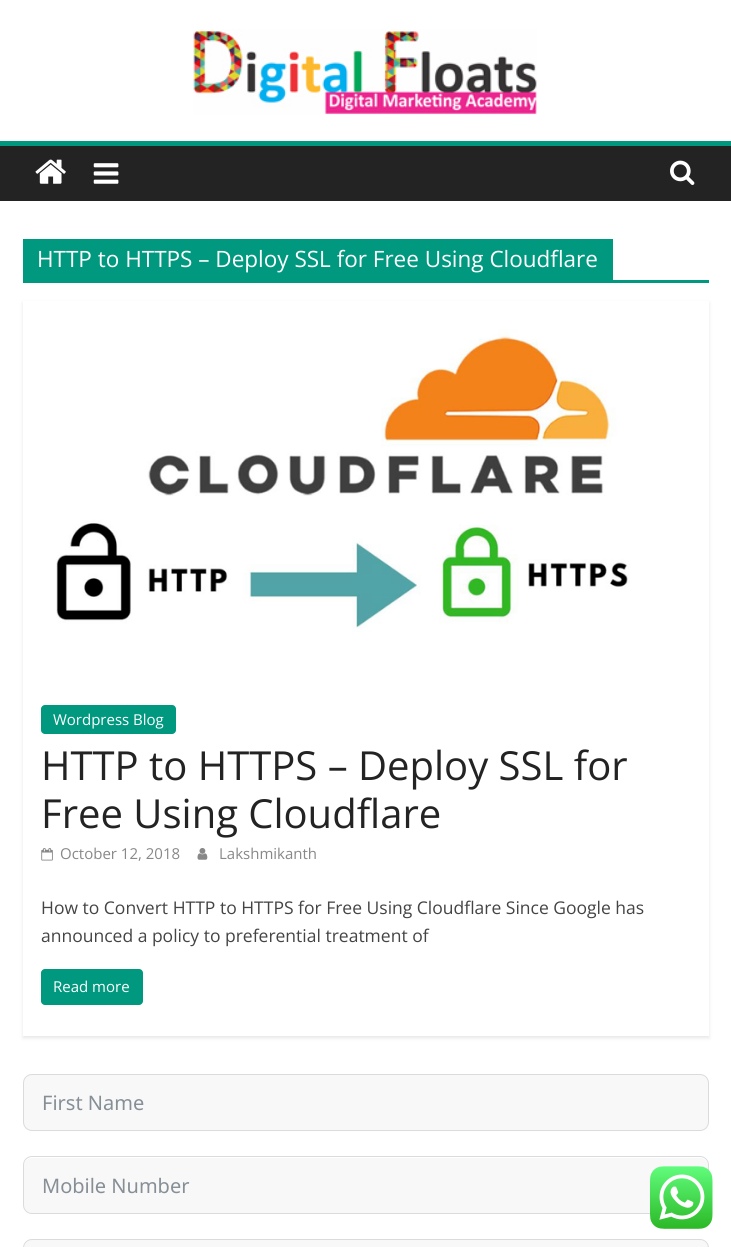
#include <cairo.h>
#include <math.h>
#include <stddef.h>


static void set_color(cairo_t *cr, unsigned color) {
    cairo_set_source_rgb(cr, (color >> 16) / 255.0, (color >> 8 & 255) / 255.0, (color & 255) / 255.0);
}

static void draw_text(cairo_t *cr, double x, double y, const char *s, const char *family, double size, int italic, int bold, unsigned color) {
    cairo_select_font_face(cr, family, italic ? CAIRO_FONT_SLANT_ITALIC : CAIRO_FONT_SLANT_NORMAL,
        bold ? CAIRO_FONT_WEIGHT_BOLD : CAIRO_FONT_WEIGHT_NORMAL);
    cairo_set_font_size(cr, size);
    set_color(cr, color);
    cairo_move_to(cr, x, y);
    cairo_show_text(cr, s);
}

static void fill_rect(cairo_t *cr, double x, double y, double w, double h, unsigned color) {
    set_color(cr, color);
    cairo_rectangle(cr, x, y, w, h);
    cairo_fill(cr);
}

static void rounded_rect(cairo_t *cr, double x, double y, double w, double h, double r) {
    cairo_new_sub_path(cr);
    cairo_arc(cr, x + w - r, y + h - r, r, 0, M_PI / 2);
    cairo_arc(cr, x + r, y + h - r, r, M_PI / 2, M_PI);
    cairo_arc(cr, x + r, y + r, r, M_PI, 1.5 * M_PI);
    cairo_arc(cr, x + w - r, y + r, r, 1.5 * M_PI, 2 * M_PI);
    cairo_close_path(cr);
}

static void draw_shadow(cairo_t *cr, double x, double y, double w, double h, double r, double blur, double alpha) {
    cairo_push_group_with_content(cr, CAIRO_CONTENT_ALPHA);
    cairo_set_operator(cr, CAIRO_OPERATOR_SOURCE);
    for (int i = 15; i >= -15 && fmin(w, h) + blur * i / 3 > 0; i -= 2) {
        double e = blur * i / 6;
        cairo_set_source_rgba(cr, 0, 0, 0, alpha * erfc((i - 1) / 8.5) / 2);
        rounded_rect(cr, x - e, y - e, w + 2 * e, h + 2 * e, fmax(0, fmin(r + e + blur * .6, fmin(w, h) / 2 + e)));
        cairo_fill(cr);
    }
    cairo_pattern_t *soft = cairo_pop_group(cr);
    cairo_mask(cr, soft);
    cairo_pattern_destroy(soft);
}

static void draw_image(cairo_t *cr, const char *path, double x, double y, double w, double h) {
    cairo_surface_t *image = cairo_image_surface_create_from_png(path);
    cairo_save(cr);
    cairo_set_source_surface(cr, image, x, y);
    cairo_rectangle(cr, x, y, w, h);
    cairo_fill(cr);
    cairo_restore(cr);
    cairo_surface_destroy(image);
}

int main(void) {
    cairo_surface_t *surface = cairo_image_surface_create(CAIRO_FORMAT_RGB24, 731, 1247);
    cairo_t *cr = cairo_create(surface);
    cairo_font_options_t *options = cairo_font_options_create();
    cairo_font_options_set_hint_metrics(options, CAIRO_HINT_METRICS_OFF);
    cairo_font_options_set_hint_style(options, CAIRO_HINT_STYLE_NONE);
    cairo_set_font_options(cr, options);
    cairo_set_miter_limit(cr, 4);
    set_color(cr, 0xFFFFFF);
    cairo_paint(cr);
    draw_image(cr, "assets/img1.png", 193, 29, 344, 86);
    fill_rect(cr, 0, 146, 731, 55, 0x232323);
    fill_rect(cr, 0, 141, 731, 5, 0x00997F);
    draw_image(cr, "assets/img2.png", 35, 159, 31, 25);
    draw_image(cr, "assets/img3.png", 93, 163, 26, 21);
    draw_image(cr, "assets/img4.png", 670, 160, 25, 25);
    fill_rect(cr, 23, 280, 686, 3, 0x00997F);
    fill_rect(cr, 23, 239, 590, 41, 0x00997F);
    draw_text(cr, 37, 267, "HTTP to HTTPS – Deploy SSL for Free Using Cloudflare", "Open Sans", 22.5, 0, 0, 0xFFFFFF);
    cairo_save(cr);
    cairo_set_fill_rule(cr, CAIRO_FILL_RULE_EVEN_ODD);
    cairo_new_path(cr);
    cairo_move_to(cr, 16, 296);
    cairo_line_to(cr, 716, 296);
    cairo_line_to(cr, 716, 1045);
    cairo_line_to(cr, 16, 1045);
    cairo_close_path(cr);
    cairo_move_to(cr, 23, 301);
    cairo_line_to(cr, 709, 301);
    cairo_line_to(cr, 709, 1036);
    cairo_line_to(cr, 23, 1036);
    cairo_close_path(cr);
    cairo_clip(cr);
    set_color(cr, 0x000000);
    draw_shadow(cr, 23, 303, 686, 735, 0, 2, 0.1);
    cairo_restore(cr);
    draw_image(cr, "assets/img5.png", 56, 329, 574, 303);
    set_color(cr, 0x00997F);
    rounded_rect(cr, 41, 705, 135, 29, 4);
    cairo_fill(cr);
    draw_text(cr, 53, 725, "Wordpress Blog", "Open Sans", 15, 0, 0, 0xFFFFFF);
    draw_text(cr, 41, 780, "HTTP to HTTPS – Deploy SSL for", "Open Sans", 40, 0, 0, 0x232323);
    draw_text(cr, 41, 828, "Free Using Cloudflare", "Open Sans", 40, 0, 0, 0x232323);
    draw_image(cr, "assets/img6.png", 41, 848, 12, 13);
    draw_text(cr, 60, 859, "October 12, 2018", "Open Sans", 15, 0, 0, 0x888888);
    draw_image(cr, "assets/img7.png", 197, 848, 11, 12);
    draw_text(cr, 219, 859, "Lakshmikanth", "Open Sans", 15, 0, 0, 0x888888);
    draw_text(cr, 41, 914, "How to Convert HTTP to HTTPS for Free Using Cloudflare Since Google has", "Open Sans", 17.5, 0, 0, 0x444444);
    draw_text(cr, 41, 942, "announced a policy to preferential treatment of", "Open Sans", 17.5, 0, 0, 0x444444);
    set_color(cr, 0x00997F);
    rounded_rect(cr, 41, 969, 102, 36, 4);
    cairo_fill(cr);
    draw_text(cr, 53, 992, "Read more", "Open Sans", 15, 0, 0, 0xFFFFFF);
    set_color(cr, 0xF8F8F8);
    rounded_rect(cr, 23.5, 1074.5, 685, 56, 8.5);
    cairo_fill_preserve(cr);
    set_color(cr, 0xDADBDD);
    cairo_set_line_width(cr, 1);
    cairo_stroke(cr);
    draw_text(cr, 42, 1110, "First Name", "Noto Sans", 20, 0, 0, 0x868E96);
    set_color(cr, 0xF8F8F8);
    rounded_rect(cr, 24, 1158, 684, 55, 8);
    cairo_fill(cr);
    rounded_rect(cr, 23.5, 1156.5, 685, 57, 8.5);
    set_color(cr, 0xDADBDD);
    cairo_stroke(cr);
    draw_text(cr, 42, 1193, "Mobile Number", "Noto Sans", 20, 0, 0, 0x868E96);
    set_color(cr, 0xF8F8F8);
    rounded_rect(cr, 24, 1240, 684, 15, 8);
    cairo_fill(cr);
    rounded_rect(cr, 23.5, 1239.5, 685, 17, 8.5);
    set_color(cr, 0xDADBDD);
    cairo_stroke(cr);
    draw_image(cr, "assets/img8.png", 650, 1166, 63, 63);
    cairo_surface_write_to_png(surface, "output.png");
    cairo_font_options_destroy(options);
    cairo_destroy(cr);
    cairo_surface_destroy(surface);
    return 0;
}
